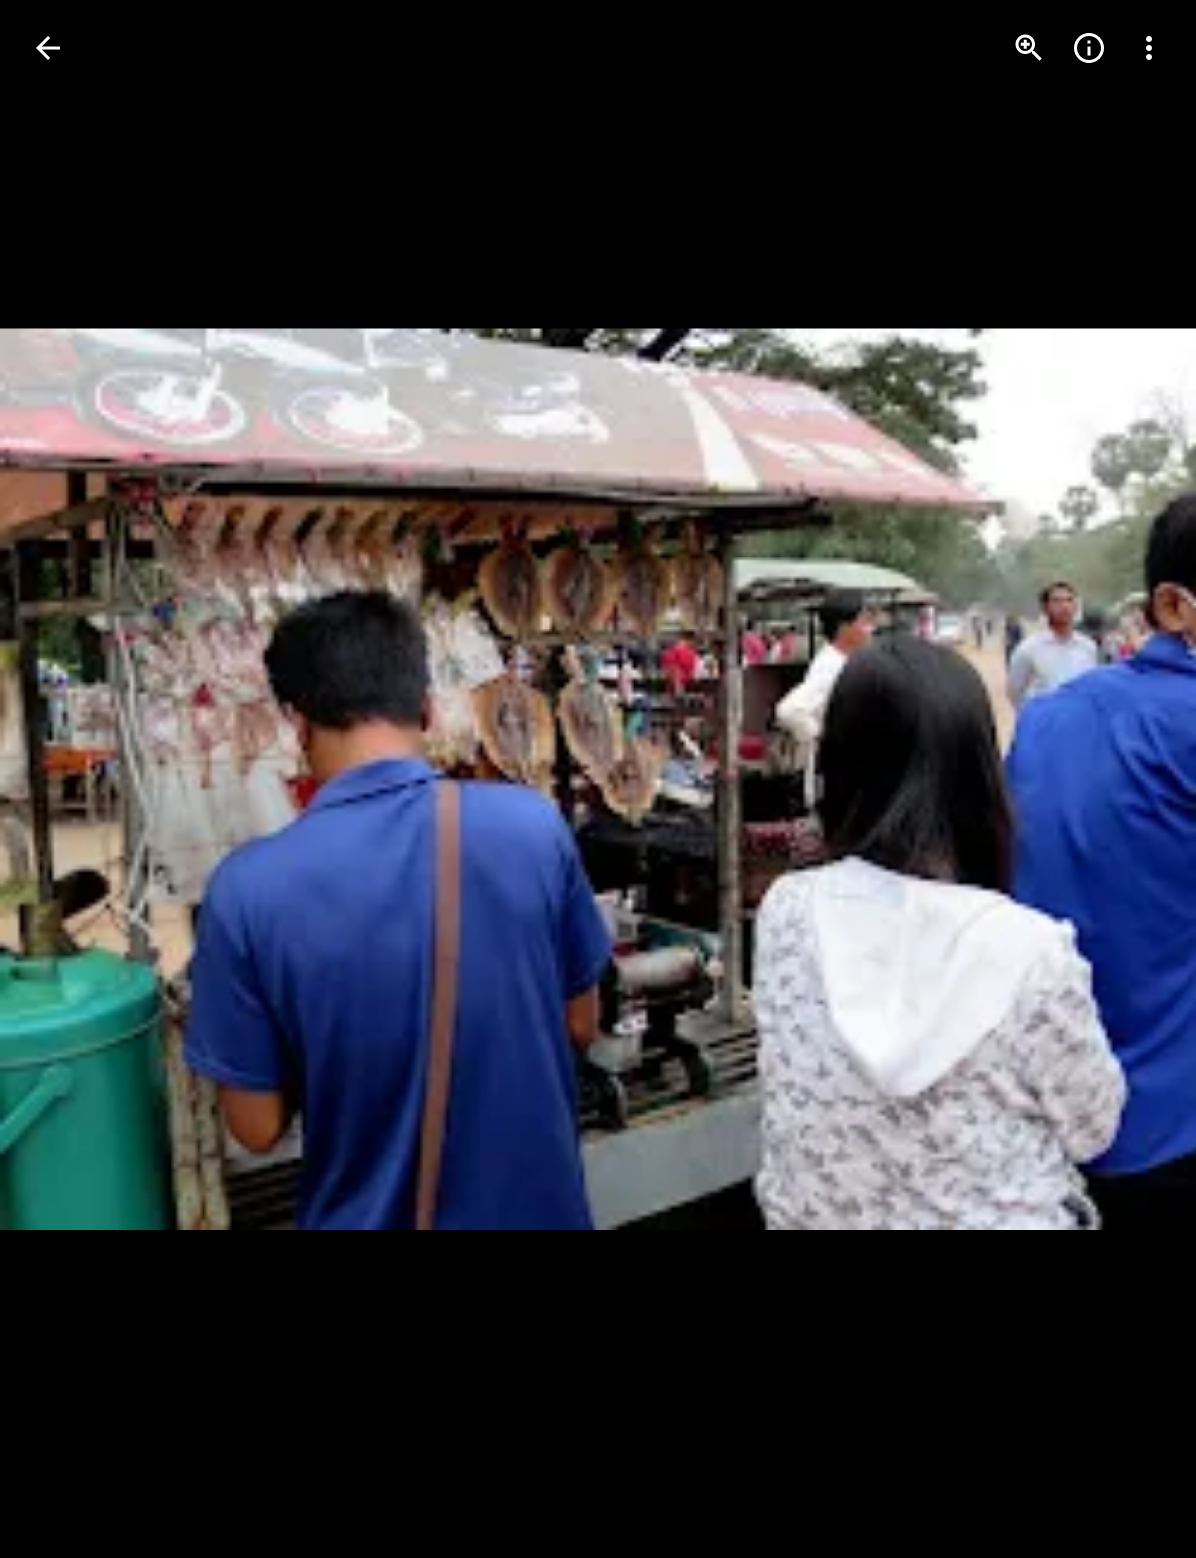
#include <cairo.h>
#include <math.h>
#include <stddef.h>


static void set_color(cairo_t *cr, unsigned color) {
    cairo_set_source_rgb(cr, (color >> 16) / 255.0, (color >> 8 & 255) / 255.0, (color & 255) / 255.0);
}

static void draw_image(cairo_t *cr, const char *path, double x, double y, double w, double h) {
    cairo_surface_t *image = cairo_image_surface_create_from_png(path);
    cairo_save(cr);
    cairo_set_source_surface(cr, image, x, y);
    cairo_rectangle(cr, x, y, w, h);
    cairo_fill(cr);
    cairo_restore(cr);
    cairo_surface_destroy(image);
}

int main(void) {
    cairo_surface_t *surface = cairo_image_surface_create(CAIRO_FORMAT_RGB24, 1196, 1558);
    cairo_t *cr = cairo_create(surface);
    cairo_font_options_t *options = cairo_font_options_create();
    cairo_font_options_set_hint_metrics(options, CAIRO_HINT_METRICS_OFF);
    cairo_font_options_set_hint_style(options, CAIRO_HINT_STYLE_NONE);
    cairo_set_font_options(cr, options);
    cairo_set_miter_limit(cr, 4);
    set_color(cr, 0x000000);
    cairo_paint(cr);
    draw_image(cr, "assets/img1.png", 36, 36, 24, 24);
    draw_image(cr, "assets/img2.png", 1015, 34, 27, 27);
    draw_image(cr, "assets/img3.png", 1074, 33, 30, 30);
    draw_image(cr, "assets/img4.png", 1146, 36, 6, 24);
    draw_image(cr, "assets/img5.png", 0, 328, 1196, 902);
    cairo_surface_write_to_png(surface, "output.png");
    cairo_font_options_destroy(options);
    cairo_destroy(cr);
    cairo_surface_destroy(surface);
    return 0;
}
